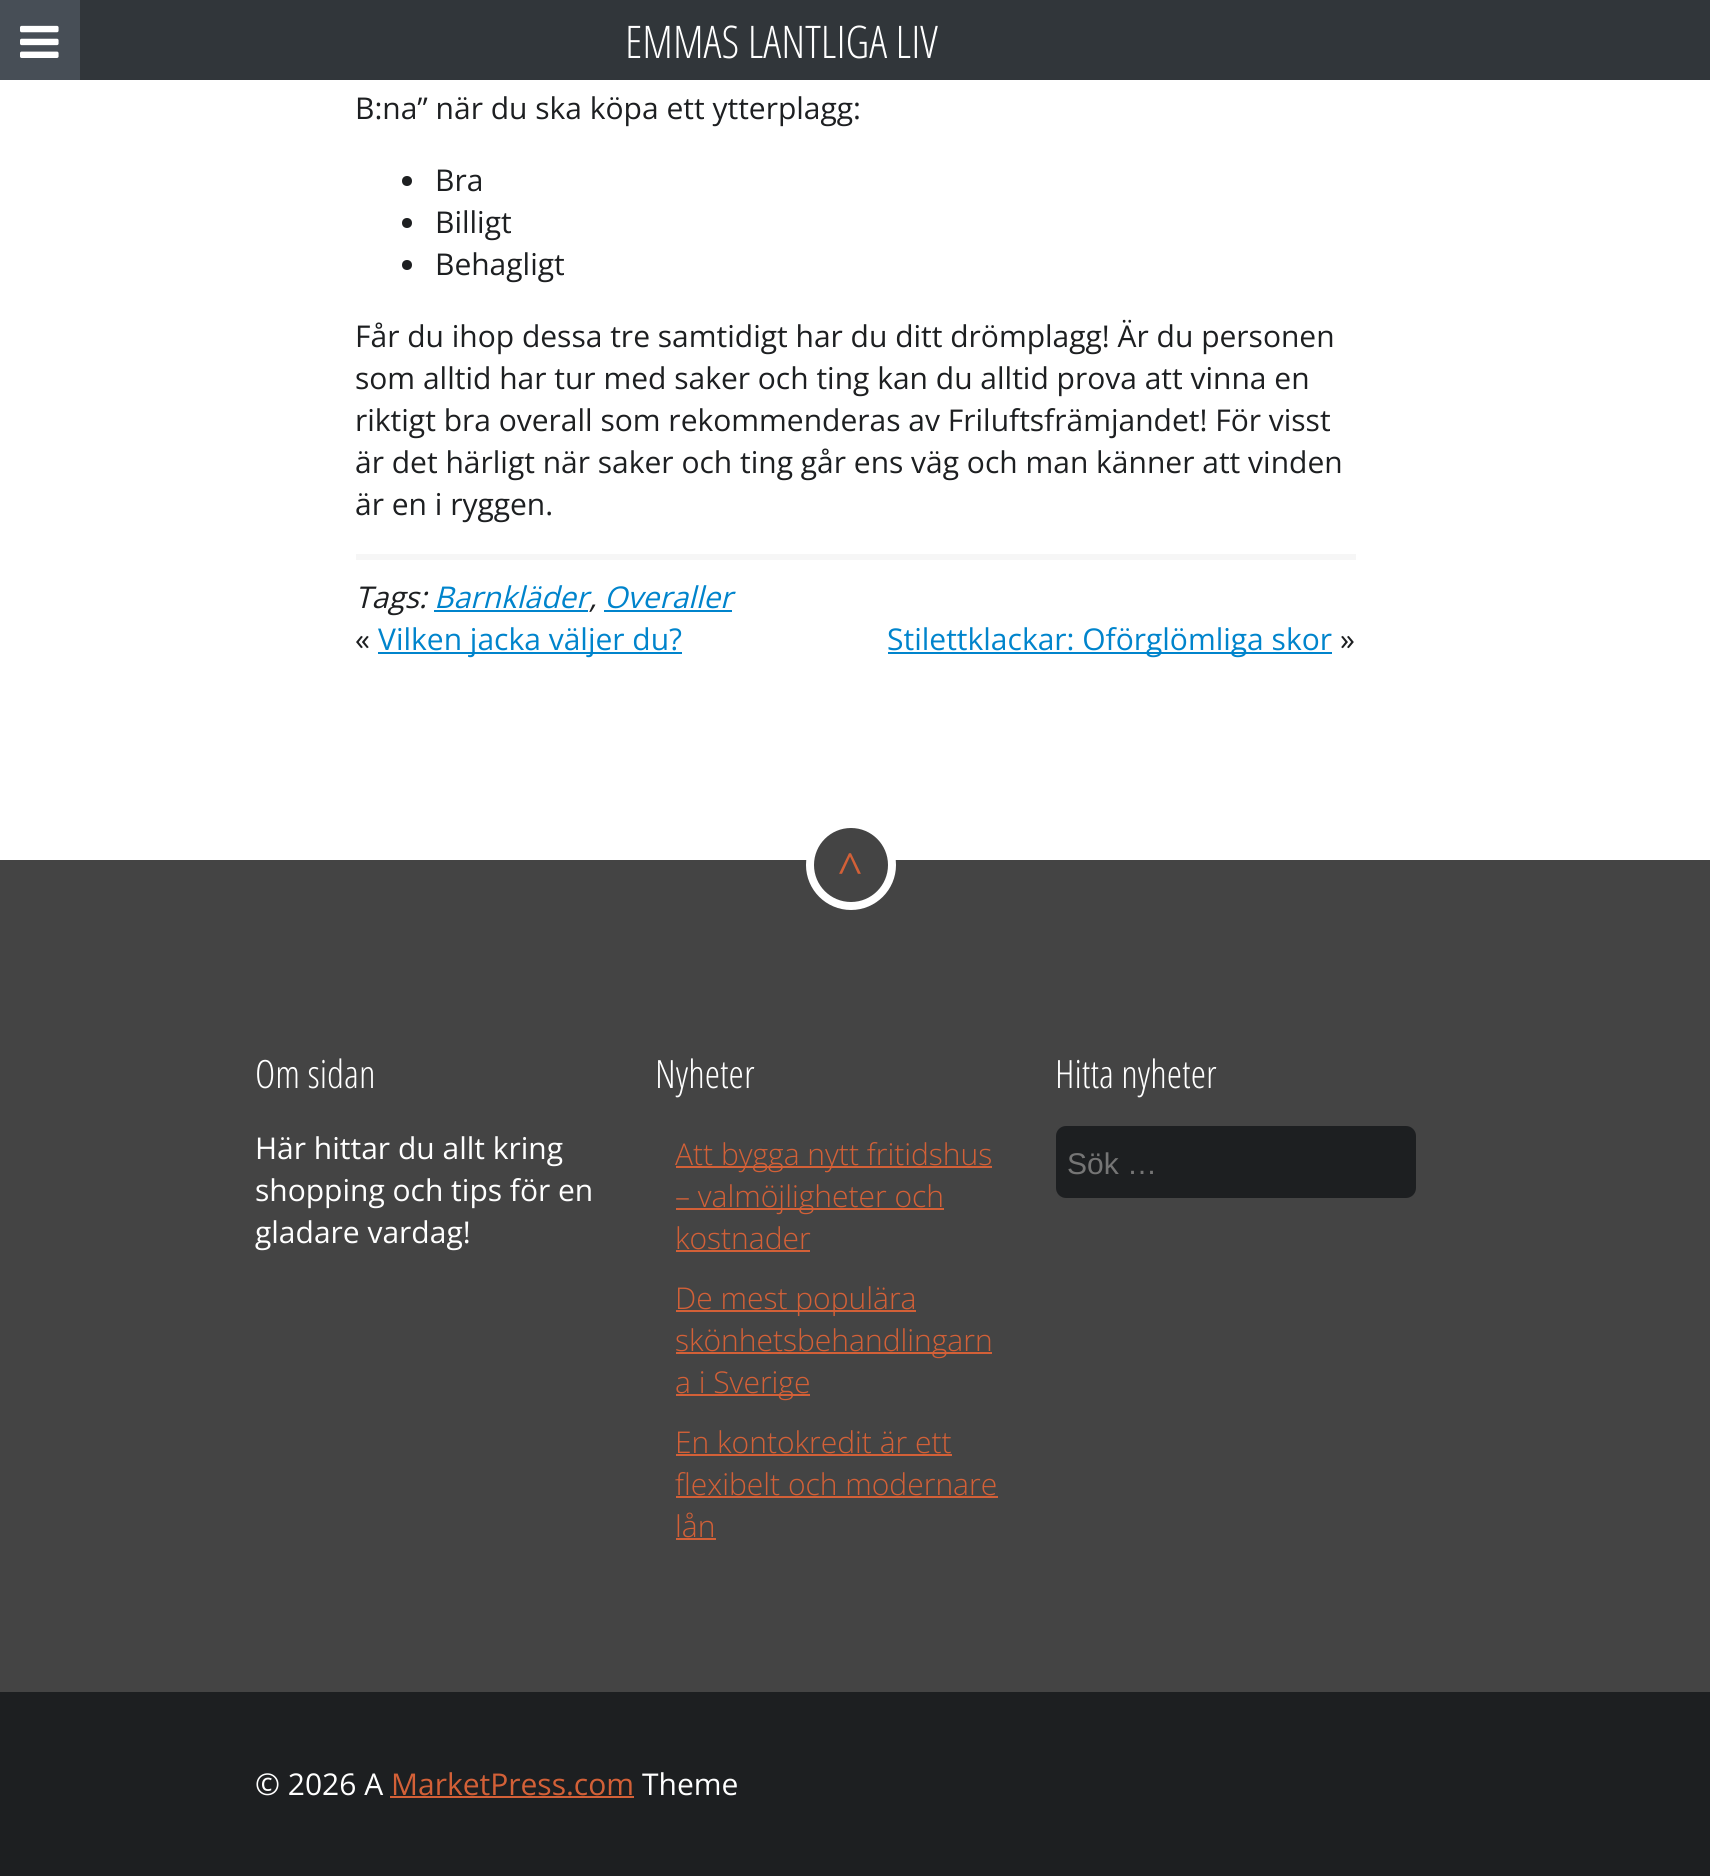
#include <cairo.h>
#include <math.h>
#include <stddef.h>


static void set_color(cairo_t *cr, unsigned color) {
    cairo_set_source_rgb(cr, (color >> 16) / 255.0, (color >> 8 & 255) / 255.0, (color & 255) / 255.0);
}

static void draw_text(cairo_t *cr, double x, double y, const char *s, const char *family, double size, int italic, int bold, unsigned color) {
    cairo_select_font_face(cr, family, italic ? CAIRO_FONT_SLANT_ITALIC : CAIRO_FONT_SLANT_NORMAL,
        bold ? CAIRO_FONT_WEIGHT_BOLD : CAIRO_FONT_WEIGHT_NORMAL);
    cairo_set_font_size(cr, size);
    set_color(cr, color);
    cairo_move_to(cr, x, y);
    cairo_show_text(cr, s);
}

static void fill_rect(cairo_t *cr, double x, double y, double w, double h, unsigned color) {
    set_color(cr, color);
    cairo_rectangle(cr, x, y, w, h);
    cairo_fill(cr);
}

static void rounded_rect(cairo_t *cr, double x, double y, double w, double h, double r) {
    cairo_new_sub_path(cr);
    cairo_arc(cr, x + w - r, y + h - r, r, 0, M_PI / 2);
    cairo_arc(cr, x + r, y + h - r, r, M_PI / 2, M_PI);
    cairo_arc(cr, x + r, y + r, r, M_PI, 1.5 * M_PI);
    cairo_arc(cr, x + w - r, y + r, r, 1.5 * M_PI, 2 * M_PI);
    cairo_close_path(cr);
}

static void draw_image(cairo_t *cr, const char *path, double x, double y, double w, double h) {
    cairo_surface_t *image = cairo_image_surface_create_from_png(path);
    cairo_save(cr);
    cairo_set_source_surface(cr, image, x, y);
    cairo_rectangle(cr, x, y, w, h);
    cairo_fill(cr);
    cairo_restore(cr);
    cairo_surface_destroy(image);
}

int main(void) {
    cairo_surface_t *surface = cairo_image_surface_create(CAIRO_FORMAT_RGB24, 1710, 1876);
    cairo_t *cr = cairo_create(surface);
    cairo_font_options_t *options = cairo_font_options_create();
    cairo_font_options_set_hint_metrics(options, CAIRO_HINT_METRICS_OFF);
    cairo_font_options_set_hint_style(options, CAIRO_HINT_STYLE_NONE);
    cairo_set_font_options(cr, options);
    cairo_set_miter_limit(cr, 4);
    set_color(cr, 0xFFFFFF);
    cairo_paint(cr);
    fill_rect(cr, 80, 0, 1630, 80, 0x31363A);
    fill_rect(cr, 0, 0, 80, 80, 0x474E56);
    draw_image(cr, "assets/img1.png", 20, 25, 39, 33);
    draw_text(cr, 625, 58, "EMMAS LANTLIGA LIV", "Open Sans Condensed Light", 45, 0, 0, 0xFFFFFF);
    draw_text(cr, 355, 119, "B:na” när du ska köpa ett ytterplagg:", "Open Sans", 30, 0, 0, 0x1D1F21);
    cairo_new_path(cr);
    cairo_arc(cr, 407, 181, 5, 0, 2 * M_PI);
    cairo_fill(cr);
    draw_text(cr, 435, 191, "Bra", "Open Sans", 30, 0, 0, 0x1D1F21);
    cairo_new_path(cr);
    cairo_arc(cr, 407, 223, 5, 0, 2 * M_PI);
    cairo_fill(cr);
    draw_text(cr, 435, 233, "Billigt", "Open Sans", 30, 0, 0, 0x1D1F21);
    cairo_new_path(cr);
    cairo_arc(cr, 407, 265, 5, 0, 2 * M_PI);
    cairo_fill(cr);
    draw_text(cr, 435, 275, "Behagligt", "Open Sans", 30, 0, 0, 0x1D1F21);
    draw_text(cr, 355, 347, "Får du ihop dessa tre samtidigt har du ditt drömplagg! Är du personen", "Open Sans", 30, 0, 0, 0x1D1F21);
    draw_text(cr, 355, 389, "som alltid har tur med saker och ting kan du alltid prova att vinna en", "Open Sans", 30, 0, 0, 0x1D1F21);
    draw_text(cr, 355, 431, "riktigt bra overall som rekommenderas av Friluftsfrämjandet! För visst", "Open Sans", 30, 0, 0, 0x1D1F21);
    draw_text(cr, 355, 473, "är det härligt när saker och ting går ens väg och man känner att vinden", "Open Sans", 30, 0, 0, 0x1D1F21);
    draw_text(cr, 355, 515, "är en i ryggen.", "Open Sans", 30, 0, 0, 0x1D1F21);
    fill_rect(cr, 356, 554, 1000, 6, 0xF6F6F6);
    draw_text(cr, 355, 608, "Tags:", "Open Sans", 30, 1, 0, 0x1D1F21);
    draw_text(cr, 434, 608, "Barnkläder", "Open Sans", 30, 1, 0, 0x0084CC);
    draw_text(cr, 604, 608, "Overaller", "Open Sans", 30, 1, 0, 0x0084CC);
    draw_text(cr, 589, 608, ",", "Open Sans", 30, 1, 0, 0x1D1F21);
    fill_rect(cr, 434, 610, 154, 2, 0x0084CC);
    fill_rect(cr, 604, 610, 128, 2, 0x0084CC);
    draw_text(cr, 355, 650, "«", "Open Sans", 30, 0, 0, 0x1D1F21);
    fill_rect(cr, 378, 652, 304, 2, 0x0084CC);
    draw_text(cr, 378, 650, "Vilken jacka väljer du?", "Open Sans", 30, 0, 0, 0x0084CC);
    fill_rect(cr, 888, 652, 444, 2, 0x0084CC);
    draw_text(cr, 887, 650, "Stilettklackar: Oförglömliga skor", "Open Sans", 30, 0, 0, 0x0084CC);
    draw_text(cr, 1340, 650, "»", "Open Sans", 30, 0, 0, 0x1D1F21);
    fill_rect(cr, 0, 860, 1710, 832, 0x444444);
    cairo_new_path(cr);
    cairo_arc(cr, 851, 865, 41, 0, 2 * M_PI);
    cairo_fill_preserve(cr);
    set_color(cr, 0xFFFFFF);
    cairo_set_line_width(cr, 8);
    cairo_stroke(cr);
    draw_text(cr, 838, 896, "^", "Open Sans Condensed Light", 60, 0, 0, 0xD36037);
    draw_text(cr, 255, 1088, "Om sidan", "Open Sans Condensed Light", 39, 0, 0, 0xFFFFFF);
    draw_text(cr, 255, 1159, "Här hittar du allt kring", "Open Sans", 30, 0, 0, 0xFFFFFF);
    draw_text(cr, 255, 1201, "shopping och tips för en", "Open Sans", 30, 0, 0, 0xFFFFFF);
    draw_text(cr, 255, 1243, "gladare vardag!", "Open Sans", 30, 0, 0, 0xFFFFFF);
    draw_text(cr, 655, 1088, "Nyheter", "Open Sans Condensed Light", 39, 0, 0, 0xFFFFFF);
    fill_rect(cr, 676, 1166, 316, 2, 0xD36037);
    draw_text(cr, 675, 1165, "Att bygga nytt fritidshus", "Open Sans Light", 30, 0, 0, 0xD36037);
    fill_rect(cr, 676, 1208, 268, 2, 0xD36037);
    draw_text(cr, 675, 1207, "– valmöjligheter och", "Open Sans Light", 30, 0, 0, 0xD36037);
    draw_text(cr, 675, 1249, "kostnader", "Open Sans Light", 30, 0, 0, 0xD36037);
    fill_rect(cr, 676, 1250, 134, 2, 0xD36037);
    fill_rect(cr, 676, 1310, 240, 2, 0xD36037);
    draw_text(cr, 675, 1309, "De mest populära", "Open Sans Light", 30, 0, 0, 0xD36037);
    fill_rect(cr, 676, 1352, 316, 2, 0xD36037);
    draw_text(cr, 675, 1351, "skönhetsbehandlingarn", "Open Sans Light", 30, 0, 0, 0xD36037);
    fill_rect(cr, 676, 1394, 134, 2, 0xD36037);
    draw_text(cr, 675, 1393, "a i Sverige", "Open Sans Light", 30, 0, 0, 0xD36037);
    draw_text(cr, 675, 1453, "En kontokredit är ett", "Open Sans Light", 30, 0, 0, 0xD36037);
    fill_rect(cr, 676, 1454, 276, 2, 0xD36037);
    draw_text(cr, 675, 1495, "flexibelt och modernare", "Open Sans Light", 30, 0, 0, 0xD36037);
    fill_rect(cr, 676, 1496, 322, 2, 0xD36037);
    draw_text(cr, 675, 1537, "lån", "Open Sans Light", 30, 0, 0, 0xD36037);
    fill_rect(cr, 676, 1538, 40, 2, 0xD36037);
    draw_text(cr, 1055, 1088, "Hitta nyheter", "Open Sans Condensed Light", 39, 0, 0, 0xFFFFFF);
    set_color(cr, 0x1D1F21);
    rounded_rect(cr, 1056, 1126, 360, 72, 10);
    cairo_fill(cr);
    draw_text(cr, 1067, 1174, "Sök …", "Liberation Sans", 30, 0, 0, 0x757575);
    fill_rect(cr, 0, 1692, 1710, 184, 0x1D1F21);
    draw_text(cr, 255, 1795, "© 2026 A", "Open Sans", 30, 0, 0, 0xFFFFFF);
    draw_text(cr, 391, 1795, "MarketPress.com", "Open Sans", 30, 0, 0, 0xD36037);
    fill_rect(cr, 390, 1796, 244, 2, 0xD36037);
    draw_text(cr, 642, 1795, "Theme", "Open Sans", 30, 0, 0, 0xFFFFFF);
    cairo_surface_write_to_png(surface, "output.png");
    cairo_font_options_destroy(options);
    cairo_destroy(cr);
    cairo_surface_destroy(surface);
    return 0;
}
